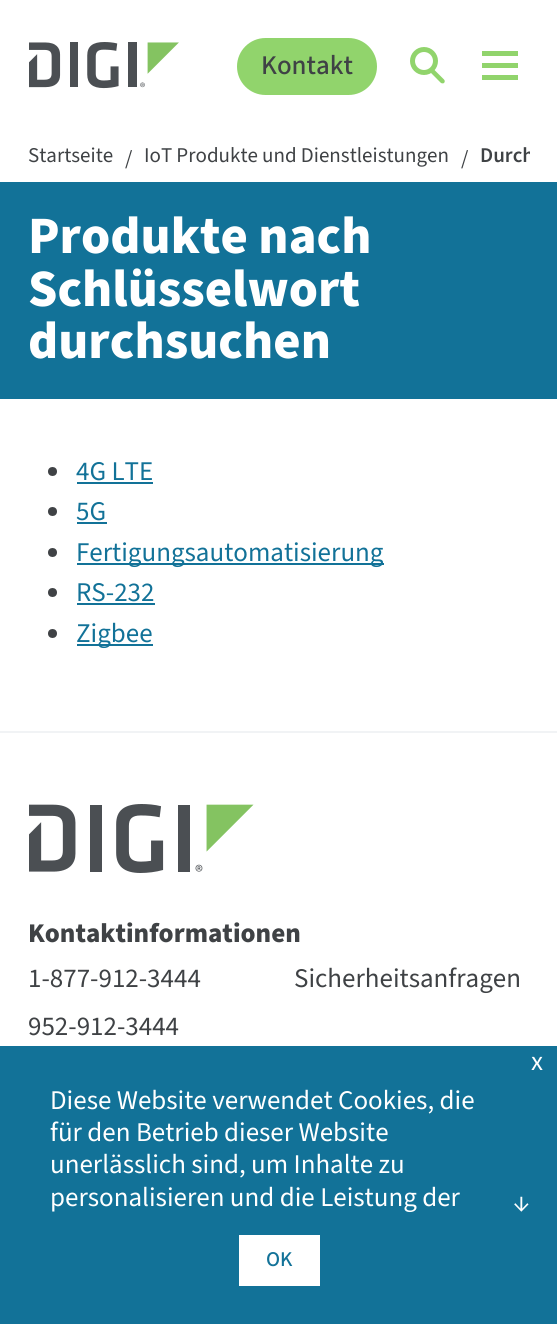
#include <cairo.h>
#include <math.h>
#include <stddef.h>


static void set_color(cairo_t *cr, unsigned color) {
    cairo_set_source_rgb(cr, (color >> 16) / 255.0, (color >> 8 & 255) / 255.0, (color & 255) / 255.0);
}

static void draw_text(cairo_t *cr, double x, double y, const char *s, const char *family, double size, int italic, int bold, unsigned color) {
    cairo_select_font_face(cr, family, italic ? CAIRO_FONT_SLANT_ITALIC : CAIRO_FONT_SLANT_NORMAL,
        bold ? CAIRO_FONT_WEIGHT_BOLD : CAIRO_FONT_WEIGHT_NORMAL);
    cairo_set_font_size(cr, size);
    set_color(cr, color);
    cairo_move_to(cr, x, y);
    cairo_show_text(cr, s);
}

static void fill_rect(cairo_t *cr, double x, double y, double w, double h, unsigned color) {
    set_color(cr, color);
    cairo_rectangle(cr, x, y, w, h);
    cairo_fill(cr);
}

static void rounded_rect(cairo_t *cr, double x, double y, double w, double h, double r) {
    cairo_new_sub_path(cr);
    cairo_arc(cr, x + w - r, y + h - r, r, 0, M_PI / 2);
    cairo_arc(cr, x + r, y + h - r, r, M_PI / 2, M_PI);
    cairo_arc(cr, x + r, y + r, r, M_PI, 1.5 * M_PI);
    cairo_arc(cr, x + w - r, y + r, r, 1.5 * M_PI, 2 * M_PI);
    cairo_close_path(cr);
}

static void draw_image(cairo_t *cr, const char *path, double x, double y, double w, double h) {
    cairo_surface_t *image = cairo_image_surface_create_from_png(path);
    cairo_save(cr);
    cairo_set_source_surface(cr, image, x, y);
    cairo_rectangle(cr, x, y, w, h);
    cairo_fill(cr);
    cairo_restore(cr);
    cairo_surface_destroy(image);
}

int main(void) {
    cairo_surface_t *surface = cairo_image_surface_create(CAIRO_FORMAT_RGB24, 557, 1324);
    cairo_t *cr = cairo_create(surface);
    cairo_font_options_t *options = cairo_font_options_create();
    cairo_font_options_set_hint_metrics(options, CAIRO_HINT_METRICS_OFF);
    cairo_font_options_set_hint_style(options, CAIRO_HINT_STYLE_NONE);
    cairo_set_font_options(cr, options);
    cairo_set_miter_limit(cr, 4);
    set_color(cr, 0xFFFFFF);
    cairo_paint(cr);
    draw_image(cr, "assets/img1.png", 29, 42, 150, 47);
    set_color(cr, 0x91D46C);
    rounded_rect(cr, 237, 38, 140, 57, 28.5);
    cairo_fill(cr);
    draw_text(cr, 261, 74, "Kontakt", "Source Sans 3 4 ExtraLight", 27, 0, 0, 0x3F4245);
    cairo_new_path(cr);
    cairo_arc(cr, 424, 61, 11.5, 0, 2 * M_PI);
    set_color(cr, 0x91D46C);
    cairo_set_line_width(cr, 5);
    cairo_stroke(cr);
    cairo_new_path(cr);
    cairo_move_to(cr, 431.5, 70);
    cairo_curve_to(cr, 432.5, 69.5, 434, 69.5, 434.5, 70);
    cairo_line_to(cr, 444, 79.5);
    cairo_curve_to(cr, 445, 80.5, 445, 82, 444, 83);
    cairo_curve_to(cr, 443.5, 83.5, 442, 83.5, 441, 83);
    cairo_line_to(cr, 431.5, 73.5);
    cairo_curve_to(cr, 430.5, 72.5, 430.5, 71, 431.5, 70);
    cairo_close_path(cr);
    cairo_fill(cr);
    fill_rect(cr, 482, 51, 36, 5, 0x91D46C);
    fill_rect(cr, 482, 63, 36, 5, 0x91D46C);
    fill_rect(cr, 482, 75, 36, 5, 0x91D46C);
    draw_text(cr, 28, 162, "Startseite", "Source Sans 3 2 ExtraLight", 21, 0, 0, 0x3F4245);
    draw_text(cr, 125, 165, "/", "Source Sans 3 2 ExtraLight", 21, 0, 0, 0x3F4245);
    draw_text(cr, 144, 162, "IoT Produkte und Dienstleistungen", "Source Sans 3 2 ExtraLight", 21, 0, 0, 0x3F4245);
    draw_text(cr, 461, 165, "/", "Source Sans 3 2 ExtraLight", 21, 0, 0, 0x3F4245);
    cairo_save(cr);
    cairo_rectangle(cr, 29, 144, 501, 33);
    cairo_clip(cr);
    draw_text(cr, 480, 162, "Durch", "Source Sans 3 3 ExtraLight", 21, 0, 0, 0x3F4245);
    cairo_restore(cr);
    fill_rect(cr, 0, 182, 557, 217, 0x127298);
    draw_text(cr, 28, 253, "Produkte nach", "Source Sans 3 ExtraLight", 52.5, 0, 0, 0xFFFFFF);
    draw_text(cr, 28, 306, "Schlüsselwort", "Source Sans 3 ExtraLight", 52.5, 0, 0, 0xFFFFFF);
    draw_text(cr, 28, 358, "durchsuchen", "Source Sans 3 ExtraLight", 52.5, 0, 0, 0xFFFFFF);
    set_color(cr, 0x3F4245);
    cairo_new_path(cr);
    cairo_arc(cr, 52.5, 471.5, 4.5, 0, 2 * M_PI);
    cairo_fill(cr);
    draw_text(cr, 76, 480, "4G LTE", "Source Sans 3 2 ExtraLight", 27, 0, 0, 0x127298);
    fill_rect(cr, 77, 482, 76, 2, 0x127298);
    set_color(cr, 0x3F4245);
    cairo_new_path(cr);
    cairo_arc(cr, 52.5, 511.5, 4.5, 0, 2 * M_PI);
    cairo_fill(cr);
    draw_text(cr, 76, 520, "5G", "Source Sans 3 2 ExtraLight", 27, 0, 0, 0x127298);
    fill_rect(cr, 77, 522, 30, 2, 0x127298);
    set_color(cr, 0x3F4245);
    cairo_new_path(cr);
    cairo_arc(cr, 52.5, 552.5, 4.5, 0, 2 * M_PI);
    cairo_fill(cr);
    fill_rect(cr, 77, 563, 307, 2, 0x127298);
    draw_text(cr, 76, 561, "Fertigungsautomatisierung", "Source Sans 3 2 ExtraLight", 27, 0, 0, 0x127298);
    set_color(cr, 0x3F4245);
    cairo_new_path(cr);
    cairo_arc(cr, 52.5, 592.5, 4.5, 0, 2 * M_PI);
    cairo_fill(cr);
    draw_text(cr, 76, 601, "RS-232", "Source Sans 3 2 ExtraLight", 27, 0, 0, 0x127298);
    fill_rect(cr, 77, 603, 78, 2, 0x127298);
    set_color(cr, 0x3F4245);
    cairo_new_path(cr);
    cairo_arc(cr, 52.5, 633.5, 4.5, 0, 2 * M_PI);
    cairo_fill(cr);
    fill_rect(cr, 77, 644, 76, 2, 0x127298);
    draw_text(cr, 76, 642, "Zigbee", "Source Sans 3 2 ExtraLight", 27, 0, 0, 0x127298);
    fill_rect(cr, 0, 731, 557, 2, 0xF1F3F5);
    draw_image(cr, "assets/img2.png", 29, 804, 225, 69);
    draw_text(cr, 28, 942, "Kontaktinformationen", "Source Sans 3 ExtraLight", 27, 0, 0, 0x3F4245);
    draw_text(cr, 28, 987, "1-877-912-3444", "Source Sans 3 2 ExtraLight", 27, 0, 0, 0x3F4245);
    draw_text(cr, 28, 1035, "952-912-3444", "Source Sans 3 2 ExtraLight", 27, 0, 0, 0x3F4245);
    draw_text(cr, 294, 987, "Sicherheitsanfragen", "Source Sans 3 2 ExtraLight", 27, 0, 0, 0x3F4245);
    fill_rect(cr, 0, 1046, 557, 278, 0x127298);
    draw_text(cr, 531, 1070, "x", "Source Sans 3 2 ExtraLight", 27, 0, 0, 0xFFFFFF);
    draw_text(cr, 50, 1109, "Diese Website verwendet Cookies, die", "Source Sans 3 2 ExtraLight", 27, 0, 0, 0xFFFFFF);
    draw_text(cr, 50, 1141, "für den Betrieb dieser Website", "Source Sans 3 2 ExtraLight", 27, 0, 0, 0xFFFFFF);
    draw_text(cr, 50, 1173, "unerlässlich sind, um Inhalte zu", "Source Sans 3 2 ExtraLight", 27, 0, 0, 0xFFFFFF);
    draw_text(cr, 50, 1206, "personalisieren und die Leistung der", "Source Sans 3 2 ExtraLight", 27, 0, 0, 0xFFFFFF);
    draw_text(cr, 513, 1211, "↓", "Source Sans 3 2 ExtraLight", 27, 0, 0, 0xFFFFFF);
    fill_rect(cr, 239, 1235, 81, 51, 0xFFFFFF);
    draw_text(cr, 266, 1266, "OK", "Source Sans 3 4 ExtraLight", 21, 0, 0, 0x127298);
    cairo_surface_write_to_png(surface, "output.png");
    cairo_font_options_destroy(options);
    cairo_destroy(cr);
    cairo_surface_destroy(surface);
    return 0;
}
